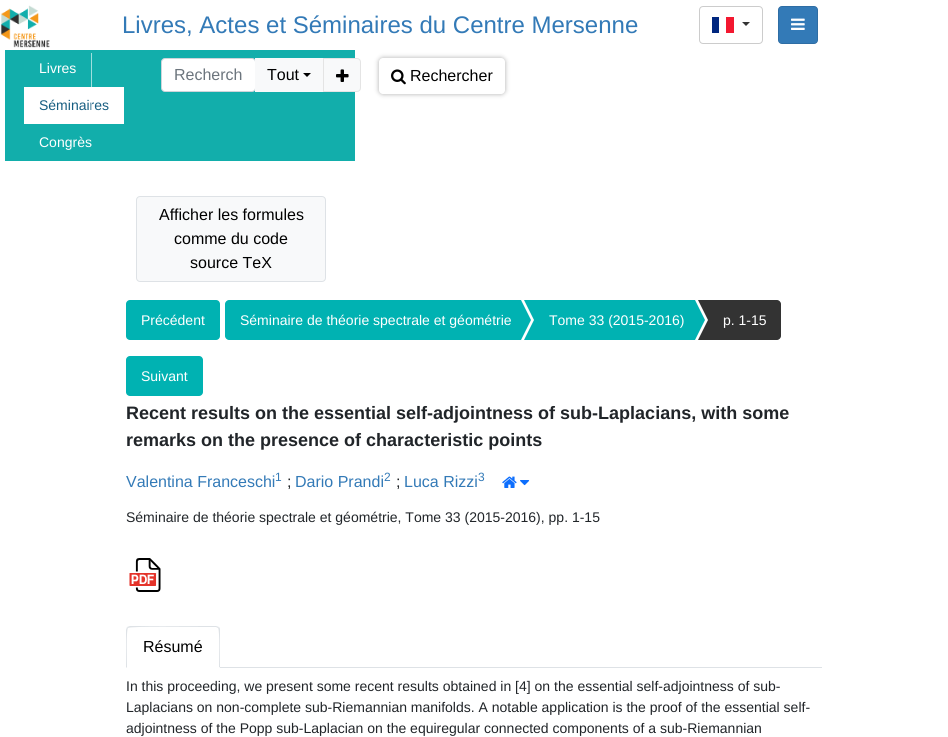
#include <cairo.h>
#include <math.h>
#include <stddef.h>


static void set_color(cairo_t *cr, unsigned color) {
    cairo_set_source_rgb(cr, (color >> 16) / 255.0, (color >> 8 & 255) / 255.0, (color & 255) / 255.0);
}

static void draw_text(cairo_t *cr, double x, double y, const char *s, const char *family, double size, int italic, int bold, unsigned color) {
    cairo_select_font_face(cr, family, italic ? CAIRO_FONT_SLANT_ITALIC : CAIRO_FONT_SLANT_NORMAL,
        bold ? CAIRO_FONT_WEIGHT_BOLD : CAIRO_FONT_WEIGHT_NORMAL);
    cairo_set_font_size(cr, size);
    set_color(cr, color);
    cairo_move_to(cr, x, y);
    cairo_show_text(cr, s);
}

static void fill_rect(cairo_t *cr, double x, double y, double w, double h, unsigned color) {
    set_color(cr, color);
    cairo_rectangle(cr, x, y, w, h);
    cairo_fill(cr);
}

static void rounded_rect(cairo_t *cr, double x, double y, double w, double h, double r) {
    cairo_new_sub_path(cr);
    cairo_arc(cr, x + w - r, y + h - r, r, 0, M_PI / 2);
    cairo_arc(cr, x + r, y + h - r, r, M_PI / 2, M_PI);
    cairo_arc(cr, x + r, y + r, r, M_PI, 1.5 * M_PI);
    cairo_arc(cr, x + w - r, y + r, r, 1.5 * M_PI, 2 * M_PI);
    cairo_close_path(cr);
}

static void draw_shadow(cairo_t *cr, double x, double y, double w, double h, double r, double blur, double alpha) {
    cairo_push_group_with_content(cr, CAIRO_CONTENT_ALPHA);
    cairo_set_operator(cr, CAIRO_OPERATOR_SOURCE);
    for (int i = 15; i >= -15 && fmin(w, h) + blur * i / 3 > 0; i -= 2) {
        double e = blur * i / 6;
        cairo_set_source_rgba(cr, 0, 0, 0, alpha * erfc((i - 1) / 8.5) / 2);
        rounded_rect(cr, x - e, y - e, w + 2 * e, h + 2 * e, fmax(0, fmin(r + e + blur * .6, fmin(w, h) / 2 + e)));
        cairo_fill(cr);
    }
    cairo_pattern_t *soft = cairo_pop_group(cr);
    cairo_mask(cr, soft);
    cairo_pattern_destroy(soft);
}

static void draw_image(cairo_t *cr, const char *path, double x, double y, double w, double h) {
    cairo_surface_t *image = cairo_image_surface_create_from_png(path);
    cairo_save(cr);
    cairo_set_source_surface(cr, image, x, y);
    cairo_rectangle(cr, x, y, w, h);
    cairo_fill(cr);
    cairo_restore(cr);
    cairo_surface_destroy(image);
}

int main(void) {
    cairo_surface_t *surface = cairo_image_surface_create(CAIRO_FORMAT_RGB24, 948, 737);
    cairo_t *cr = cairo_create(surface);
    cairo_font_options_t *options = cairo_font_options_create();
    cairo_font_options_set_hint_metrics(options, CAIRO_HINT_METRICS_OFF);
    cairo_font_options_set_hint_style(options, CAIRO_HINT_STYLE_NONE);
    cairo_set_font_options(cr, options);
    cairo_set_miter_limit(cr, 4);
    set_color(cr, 0xFFFFFF);
    cairo_paint(cr);
    draw_image(cr, "assets/img1.png", 0, 5, 50, 43);
    draw_text(cr, 122, 33, "Livres, Actes et Séminaires du Centre Mersenne", "Liberation Sans", 24, 0, 0, 0x337AB7);
    rounded_rect(cr, 699.5, 6.5, 63, 37, 3.5);
    set_color(cr, 0xCCCCCC);
    cairo_set_line_width(cr, 1);
    cairo_stroke(cr);
    fill_rect(cr, 712, 17, 7, 16, 0x00267F);
    fill_rect(cr, 726, 17, 8, 16, 0xF31830);
    set_color(cr, 0x333333);
    cairo_new_path(cr);
    cairo_move_to(cr, 742, 22);
    cairo_line_to(cr, 750, 22);
    cairo_line_to(cr, 746, 26);
    cairo_close_path(cr);
    cairo_fill(cr);
    set_color(cr, 0x337AB7);
    rounded_rect(cr, 778.5, 6.5, 39, 37, 3.5);
    cairo_fill_preserve(cr);
    set_color(cr, 0x2E6DA4);
    cairo_stroke(cr);
    draw_image(cr, "assets/img2.png", 791, 18, 14, 12);
    fill_rect(cr, 5, 50, 350, 111, 0x12AEAB);
    draw_text(cr, 39, 73, "Livres", "Liberation Sans", 14, 0, 0, 0xFFFFFF);
    fill_rect(cr, 24, 87, 100, 37, 0xFFFFFF);
    draw_text(cr, 39, 110, "Séminaires", "Liberation Sans", 14, 0, 0, 0x165D81);
    cairo_set_source_rgba(cr, 1, 1, 1, 0.6);
    cairo_rectangle(cr, 91, 53, 1, 57);
    cairo_fill(cr);
    draw_text(cr, 39, 147, "Congrès", "Liberation Sans", 14, 0, 0, 0xFFFFFF);
    rounded_rect(cr, 161.5, 58.5, 94, 33, 3.5);
    cairo_fill_preserve(cr);
    set_color(cr, 0xCED4DA);
    cairo_stroke(cr);
    draw_text(cr, 174, 80, "Recherch", "Liberation Sans", 16, 0, 0, 0x6C757D);
    fill_rect(cr, 255, 58, 68, 34, 0xF8F9FA);
    draw_text(cr, 267, 80, "Tout", "Liberation Sans", 16, 0, 0, 0x000000);
    cairo_new_path(cr);
    cairo_move_to(cr, 303, 73);
    cairo_line_to(cr, 311, 73);
    cairo_line_to(cr, 307, 77);
    cairo_close_path(cr);
    cairo_fill(cr);
    set_color(cr, 0xF8F9FA);
    cairo_new_path(cr);
    cairo_move_to(cr, 323.5, 58.5);
    cairo_line_to(cr, 357, 58.5);
    cairo_curve_to(cr, 359, 58.5, 360.5, 60, 360.5, 62);
    cairo_line_to(cr, 360.5, 88);
    cairo_curve_to(cr, 360.5, 90, 359, 91.5, 357, 91.5);
    cairo_line_to(cr, 323.5, 91.5);
    cairo_close_path(cr);
    cairo_fill_preserve(cr);
    set_color(cr, 0xE4E4E4);
    cairo_stroke(cr);
    draw_image(cr, "assets/img3.png", 336, 69, 13, 13);
    set_color(cr, 0x888888);
    draw_shadow(cr, 379, 58, 126, 36, 4, 2.5, 0.68);
    set_color(cr, 0xFFFFFF);
    rounded_rect(cr, 379, 58, 126, 36, 4);
    cairo_fill(cr);
    draw_image(cr, "assets/img4.png", 391, 69, 15, 16);
    draw_text(cr, 410, 81, "Rechercher", "Liberation Sans", 16, 0, 0, 0x000000);
    set_color(cr, 0xF8F9FA);
    rounded_rect(cr, 136.5, 196.5, 189, 85, 3.5);
    cairo_fill_preserve(cr);
    set_color(cr, 0xDEE2E6);
    cairo_stroke(cr);
    draw_text(cr, 159, 220, "Afficher les formules", "Liberation Sans", 16, 0, 0, 0x000000);
    draw_text(cr, 174, 244, "comme du code", "Liberation Sans", 16, 0, 0, 0x000000);
    draw_text(cr, 190, 268, "source TeX", "Liberation Sans", 16, 0, 0, 0x000000);
    set_color(cr, 0x00B2B2);
    rounded_rect(cr, 126, 300, 94, 40, 4);
    cairo_fill(cr);
    draw_text(cr, 141, 325, "Précédent", "Liberation Sans", 14, 0, 0, 0xFFFFFF);
    set_color(cr, 0x00B2B2);
    cairo_new_path(cr);
    cairo_move_to(cr, 229, 300);
    cairo_line_to(cr, 521, 300);
    cairo_line_to(cr, 521, 340);
    cairo_line_to(cr, 229, 340);
    cairo_curve_to(cr, 227, 340, 225, 338, 225, 336);
    cairo_line_to(cr, 225, 304);
    cairo_curve_to(cr, 225, 302, 227, 300, 229, 300);
    cairo_close_path(cr);
    cairo_fill(cr);
    draw_text(cr, 240, 325, "Séminaire de théorie spectrale et géométrie", "Liberation Sans", 14, 0, 0, 0xFFFFFF);
    set_color(cr, 0x00B2B2);
    cairo_new_path(cr);
    cairo_move_to(cr, 521, 340);
    cairo_line_to(cr, 521, 300);
    cairo_line_to(cr, 531, 320);
    cairo_close_path(cr);
    cairo_fill(cr);
    fill_rect(cr, 544, 300, 151, 40, 0x00B2B2);
    cairo_new_path(cr);
    cairo_move_to(cr, 524, 300);
    cairo_line_to(cr, 544, 300);
    cairo_line_to(cr, 534, 320);
    cairo_close_path(cr);
    cairo_fill(cr);
    fill_rect(cr, 534, 300, 10, 40, 0x00B2B2);
    cairo_new_path(cr);
    cairo_move_to(cr, 544, 340);
    cairo_line_to(cr, 524, 340);
    cairo_line_to(cr, 534, 320);
    cairo_close_path(cr);
    cairo_fill(cr);
    draw_text(cr, 549, 325, "Tome 33 (2015-2016)", "Liberation Sans", 14, 0, 0, 0xFFFFFF);
    set_color(cr, 0x00B2B2);
    cairo_new_path(cr);
    cairo_move_to(cr, 695, 340);
    cairo_line_to(cr, 695, 300);
    cairo_line_to(cr, 705, 320);
    cairo_close_path(cr);
    cairo_fill(cr);
    set_color(cr, 0x333333);
    cairo_new_path(cr);
    cairo_move_to(cr, 718, 300);
    cairo_line_to(cr, 777, 300);
    cairo_curve_to(cr, 779, 300, 781, 302, 781, 304);
    cairo_line_to(cr, 781, 336);
    cairo_curve_to(cr, 781, 338, 779, 340, 777, 340);
    cairo_line_to(cr, 718, 340);
    cairo_close_path(cr);
    cairo_fill(cr);
    cairo_new_path(cr);
    cairo_move_to(cr, 698, 300);
    cairo_line_to(cr, 718, 300);
    cairo_line_to(cr, 708, 320);
    cairo_close_path(cr);
    cairo_fill(cr);
    fill_rect(cr, 708, 300, 10, 40, 0x333333);
    cairo_new_path(cr);
    cairo_move_to(cr, 718, 340);
    cairo_line_to(cr, 698, 340);
    cairo_line_to(cr, 708, 320);
    cairo_close_path(cr);
    cairo_fill(cr);
    draw_text(cr, 723, 325, "p. 1-15", "Liberation Sans", 14, 0, 0, 0xFFFFFF);
    set_color(cr, 0x00B2B2);
    rounded_rect(cr, 126, 356, 77, 40, 4);
    cairo_fill(cr);
    draw_text(cr, 141, 381, "Suivant", "Liberation Sans", 14, 0, 0, 0xFFFFFF);
    draw_text(cr, 126, 419, "Recent results on the essential self-adjointness of sub-Laplacians, with some", "Liberation Sans", 18, 0, 1, 0x212529);
    draw_text(cr, 126, 446, "remarks on the presence of characteristic points", "Liberation Sans", 18, 0, 1, 0x212529);
    draw_text(cr, 126, 487, "Valentina Franceschi", "Liberation Sans", 16, 0, 0, 0x337AB7);
    draw_text(cr, 275, 481, "1", "Liberation Sans", 12, 0, 0, 0x337AB7);
    draw_text(cr, 287, 487, ";", "Liberation Sans", 16, 0, 0, 0x212529);
    draw_text(cr, 295, 487, "Dario Prandi", "Liberation Sans", 16, 0, 0, 0x337AB7);
    draw_text(cr, 384, 481, "2", "Liberation Sans", 12, 0, 0, 0x337AB7);
    draw_text(cr, 396, 487, ";", "Liberation Sans", 16, 0, 0, 0x212529);
    draw_text(cr, 404, 487, "Luca Rizzi", "Liberation Sans", 16, 0, 0, 0x337AB7);
    draw_text(cr, 478, 481, "3", "Liberation Sans", 12, 0, 0, 0x337AB7);
    draw_image(cr, "assets/img5.png", 502, 476, 15, 12);
    draw_image(cr, "assets/img6.png", 520, 480, 10, 6);
    draw_text(cr, 126, 522, "Séminaire de théorie spectrale et géométrie, Tome 33 (2015-2016), pp. 1-15", "Liberation Sans", 14, 0, 0, 0x212529);
    draw_image(cr, "assets/img7.png", 129, 558, 32, 34);
    fill_rect(cr, 220, 667, 602, 1, 0xDEE2E6);
    cairo_new_path(cr);
    cairo_move_to(cr, 130, 626);
    cairo_line_to(cr, 127, 627);
    cairo_line_to(cr, 128, 628);
    cairo_curve_to(cr, 130, 626, 194, 627, 202, 627);
    cairo_line_to(cr, 216, 627);
    cairo_line_to(cr, 218, 628);
    cairo_line_to(cr, 219, 627);
    cairo_line_to(cr, 216, 626);
    cairo_close_path(cr);
    cairo_fill(cr);
    cairo_new_path(cr);
    cairo_move_to(cr, 220, 668);
    cairo_line_to(cr, 220, 630);
    cairo_curve_to(cr, 220, 629, 220, 628, 219, 627);
    cairo_line_to(cr, 218, 628);
    cairo_curve_to(cr, 220, 630, 219, 662, 219, 667);
    cairo_close_path(cr);
    cairo_fill(cr);
    set_color(cr, 0xFFFFFF);
    cairo_new_path(cr);
    cairo_move_to(cr, 220, 668);
    cairo_line_to(cr, 219, 667);
    cairo_line_to(cr, 127, 667);
    cairo_line_to(cr, 126, 668);
    cairo_close_path(cr);
    cairo_fill(cr);
    set_color(cr, 0xDEE2E6);
    cairo_new_path(cr);
    cairo_move_to(cr, 126, 668);
    cairo_line_to(cr, 127, 667);
    cairo_curve_to(cr, 127, 662, 126, 630, 128, 628);
    cairo_line_to(cr, 127, 627);
    cairo_line_to(cr, 126, 630);
    cairo_close_path(cr);
    cairo_fill(cr);
    draw_text(cr, 143, 652, "Résumé", "Liberation Sans", 16, 0, 0, 0x000000);
    draw_text(cr, 126, 691, "In this proceeding, we present some recent results obtained in [4] on the essential self-adjointness of sub-", "Liberation Sans", 14, 0, 0, 0x212529);
    draw_text(cr, 126, 712, "Laplacians on non-complete sub-Riemannian manifolds. A notable application is the proof of the essential self-", "Liberation Sans", 14, 0, 0, 0x212529);
    draw_text(cr, 126, 733, "adjointness of the Popp sub-Laplacian on the equiregular connected components of a sub-Riemannian", "Liberation Sans", 14, 0, 0, 0x212529);
    cairo_surface_write_to_png(surface, "output.png");
    cairo_font_options_destroy(options);
    cairo_destroy(cr);
    cairo_surface_destroy(surface);
    return 0;
}
